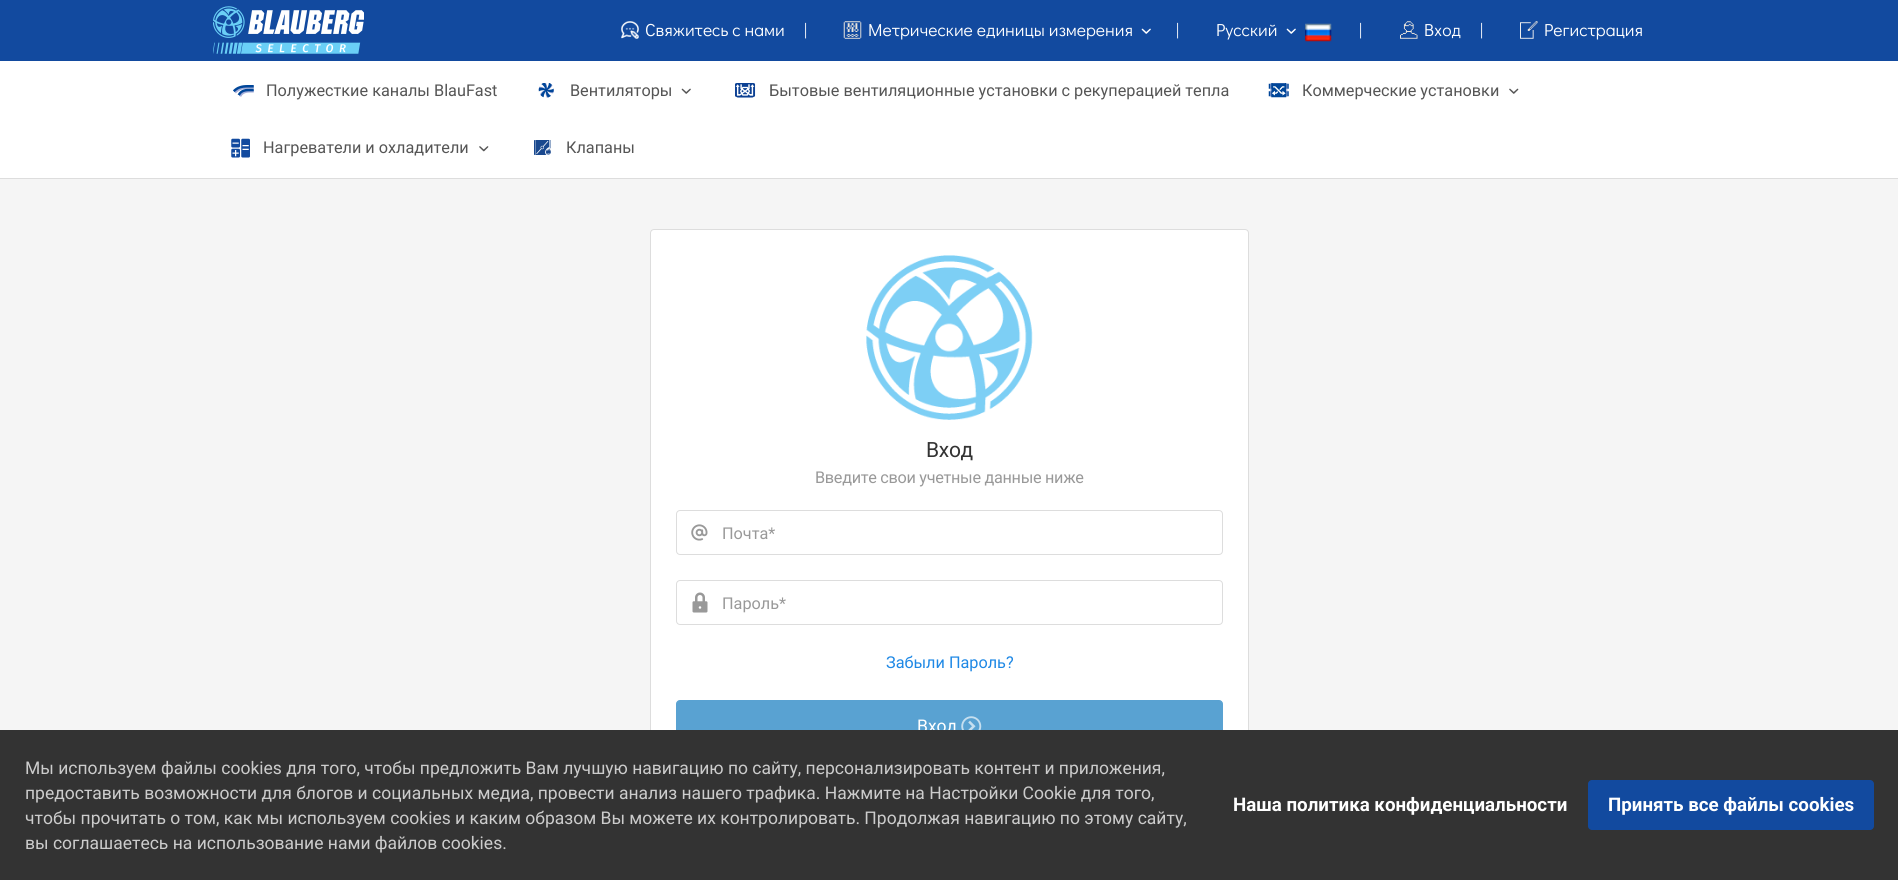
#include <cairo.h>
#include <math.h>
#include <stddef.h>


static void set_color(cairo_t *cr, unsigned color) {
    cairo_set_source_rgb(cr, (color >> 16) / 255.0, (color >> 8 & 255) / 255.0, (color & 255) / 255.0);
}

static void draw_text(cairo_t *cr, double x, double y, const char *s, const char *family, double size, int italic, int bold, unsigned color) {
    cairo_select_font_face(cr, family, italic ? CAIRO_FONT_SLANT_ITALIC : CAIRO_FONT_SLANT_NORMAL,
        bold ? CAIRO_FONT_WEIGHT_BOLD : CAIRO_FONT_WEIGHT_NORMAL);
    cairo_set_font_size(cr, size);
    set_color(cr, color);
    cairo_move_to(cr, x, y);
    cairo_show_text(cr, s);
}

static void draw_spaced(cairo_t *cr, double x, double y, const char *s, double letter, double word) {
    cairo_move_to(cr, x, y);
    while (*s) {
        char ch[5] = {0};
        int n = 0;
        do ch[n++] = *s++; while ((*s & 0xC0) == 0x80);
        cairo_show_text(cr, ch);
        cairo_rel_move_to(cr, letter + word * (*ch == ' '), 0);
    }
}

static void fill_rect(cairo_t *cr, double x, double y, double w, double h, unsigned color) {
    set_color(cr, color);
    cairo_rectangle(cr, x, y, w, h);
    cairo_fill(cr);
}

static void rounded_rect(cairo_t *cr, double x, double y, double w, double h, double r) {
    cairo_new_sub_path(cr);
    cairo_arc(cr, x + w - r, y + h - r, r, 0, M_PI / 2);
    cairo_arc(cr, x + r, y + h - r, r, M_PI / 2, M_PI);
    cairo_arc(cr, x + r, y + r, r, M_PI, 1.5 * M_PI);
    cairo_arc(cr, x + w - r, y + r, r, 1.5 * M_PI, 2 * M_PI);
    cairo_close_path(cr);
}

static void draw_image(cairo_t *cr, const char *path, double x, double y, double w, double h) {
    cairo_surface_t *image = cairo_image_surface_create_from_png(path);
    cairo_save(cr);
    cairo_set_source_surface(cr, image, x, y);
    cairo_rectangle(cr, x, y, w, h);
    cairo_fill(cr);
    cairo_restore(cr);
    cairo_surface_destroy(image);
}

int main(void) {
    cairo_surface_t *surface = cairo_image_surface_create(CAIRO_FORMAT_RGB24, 1898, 880);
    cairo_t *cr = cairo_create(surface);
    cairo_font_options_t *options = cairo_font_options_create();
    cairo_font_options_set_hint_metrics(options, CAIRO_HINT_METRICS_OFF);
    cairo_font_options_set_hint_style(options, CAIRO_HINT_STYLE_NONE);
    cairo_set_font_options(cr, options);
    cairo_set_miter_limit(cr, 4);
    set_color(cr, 0xF5F5F5);
    cairo_paint(cr);
    fill_rect(cr, 0, 0, 1898, 61, 0x124A9F);
    draw_image(cr, "assets/img1.png", 213, 6, 151, 48);
    draw_image(cr, "assets/img2.png", 621, 21, 18, 18);
    draw_text(cr, 645, 36, "Свяжитесь с нами", "Didact Gothic", 17.5, 0, 0, 0xFFFFFF);
    draw_text(cr, 804, 36, "|", "Didact Gothic", 17.5, 0, 0, 0xFFFFFF);
    draw_image(cr, "assets/img3.png", 843, 21, 19, 18);
    draw_text(cr, 868, 36, "Метрические единицы измерения", "Didact Gothic", 17.5, 0, 0, 0xFFFFFF);
    draw_image(cr, "assets/img4.png", 1141, 28, 10, 6);
    draw_text(cr, 1176, 36, "|", "Didact Gothic", 17.5, 0, 0, 0xFFFFFF);
    draw_text(cr, 1216, 36, "Русский", "Didact Gothic", 17.5, 0, 0, 0xFFFFFF);
    draw_image(cr, "assets/img4.png", 1286, 28, 10, 6);
    draw_image(cr, "assets/img5.png", 1305, 23, 27, 19);
    draw_text(cr, 1359, 36, "|", "Didact Gothic", 17.5, 0, 0, 0xFFFFFF);
    draw_image(cr, "assets/img6.png", 1400, 21, 18, 18);
    draw_text(cr, 1424, 36, "Вход", "Didact Gothic", 17.5, 0, 0, 0xFFFFFF);
    draw_text(cr, 1480, 36, "|", "Didact Gothic", 17.5, 0, 0, 0xFFFFFF);
    draw_image(cr, "assets/img7.png", 1520, 21, 18, 18);
    draw_text(cr, 1544, 36, "Регистрация", "Didact Gothic", 17.5, 0, 0, 0xFFFFFF);
    fill_rect(cr, 0, 61, 1898, 117, 0xFFFFFF);
    fill_rect(cr, 0, 178, 1898, 1, 0xDDDDDD);
    draw_image(cr, "assets/img8.png", 233, 85, 21, 12);
    draw_text(cr, 266, 96, "Полужесткие каналы BlauFast", "Roboto", 16.25, 0, 0, 0x555555);
    draw_image(cr, "assets/img9.png", 538, 83, 16, 15);
    draw_text(cr, 570, 96, "Вентиляторы", "Roboto", 16.25, 0, 0, 0x555555);
    draw_image(cr, "assets/img10.png", 681, 88, 10, 6);
    draw_image(cr, "assets/img11.png", 735, 83, 21, 15);
    draw_text(cr, 769, 96, "Бытовые вентиляционные установки с рекуперацией тепла", "Roboto", 16.25, 0, 0, 0x555555);
    draw_image(cr, "assets/img12.png", 1268, 83, 21, 15);
    draw_text(cr, 1302, 96, "Коммерческие установки", "Roboto", 16.25, 0, 0, 0x555555);
    draw_image(cr, "assets/img13.png", 1509, 88, 10, 6);
    draw_image(cr, "assets/img14.png", 231, 138, 19, 20);
    draw_text(cr, 263, 153, "Нагреватели и охладители", "Roboto", 16.25, 0, 0, 0x555555);
    draw_image(cr, "assets/img15.png", 479, 146, 10, 6);
    draw_image(cr, "assets/img16.png", 534, 140, 17, 15);
    draw_text(cr, 566, 153, "Клапаны", "Roboto", 16.25, 0, 0, 0x555555);
    set_color(cr, 0xFFFFFF);
    rounded_rect(cr, 650.5, 229.5, 598, 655, 3.5);
    cairo_fill_preserve(cr);
    set_color(cr, 0xDDDDDD);
    cairo_set_line_width(cr, 1);
    cairo_stroke(cr);
    draw_image(cr, "assets/img17.png", 866, 255, 167, 165);
    cairo_set_font_size(cr, 21);
    set_color(cr, 0x333333);
    draw_spaced(cr, 926, 457, "Вход", -0.3, 0);
    cairo_set_font_size(cr, 16.25);
    set_color(cr, 0x999999);
    draw_spaced(cr, 815, 483, "Введите свои учетные данные ниже", -0.3, 0);
    rounded_rect(cr, 676.5, 510.5, 546, 44, 3.5);
    set_color(cr, 0xDDDDDD);
    cairo_stroke(cr);
    draw_image(cr, "assets/img18.png", 691, 524, 17, 17);
    draw_text(cr, 722, 539, "Почта*", "Roboto", 16.25, 0, 0, 0x999999);
    rounded_rect(cr, 676.5, 580.5, 546, 44, 3.5);
    set_color(cr, 0xDDDDDD);
    cairo_stroke(cr);
    draw_image(cr, "assets/img19.png", 692, 592, 16, 21);
    draw_text(cr, 722, 609, "Пароль*", "Roboto", 16.25, 0, 0, 0x999999);
    draw_text(cr, 886, 668, "Забыли Пароль?", "Roboto", 16.25, 0, 0, 0x1E88E5);
    set_color(cr, 0x59A2D2);
    rounded_rect(cr, 676.5, 700.5, 546, 49, 3.5);
    cairo_fill_preserve(cr);
    cairo_stroke(cr);
    draw_text(cr, 917, 732, "Вход", "Roboto", 17.5, 0, 0, 0xFFFFFF);
    draw_image(cr, "assets/img20.png", 961, 716, 21, 14);
    fill_rect(cr, 0, 730, 1898, 150, 0x333333);
    draw_text(cr, 25, 774, "Мы используем файлы cookies для того, чтобы предложить Вам лучшую навигацию по сайту, персонализировать контент и приложения,", "Roboto", 17.5, 0, 0, 0xCCCCCC);
    draw_text(cr, 25, 799, "предоставить возможности для блогов и социальных медиа, провести анализ нашего трафика. Нажмите на Настройки Cookie для того,", "Roboto", 17.5, 0, 0, 0xCCCCCC);
    draw_text(cr, 25, 824, "чтобы прочитать о том, как мы используем cookies и каким образом Вы можете их контролировать. Продолжая навигацию по этому сайту,", "Roboto", 17.5, 0, 0, 0xCCCCCC);
    draw_text(cr, 25, 849, "вы соглашаетесь на использование нами файлов cookies.", "Roboto", 17.5, 0, 0, 0xCCCCCC);
    draw_text(cr, 1233, 811, "Наша политика конфиденциальности", "Roboto", 18.75, 0, 1, 0xFFFFFF);
    set_color(cr, 0x124A9F);
    rounded_rect(cr, 1588, 780, 286, 50, 4);
    cairo_fill(cr);
    draw_text(cr, 1608, 811, "Принять все файлы cookies", "Roboto", 18.75, 0, 1, 0xFFFFFF);
    cairo_surface_write_to_png(surface, "output.png");
    cairo_font_options_destroy(options);
    cairo_destroy(cr);
    cairo_surface_destroy(surface);
    return 0;
}
